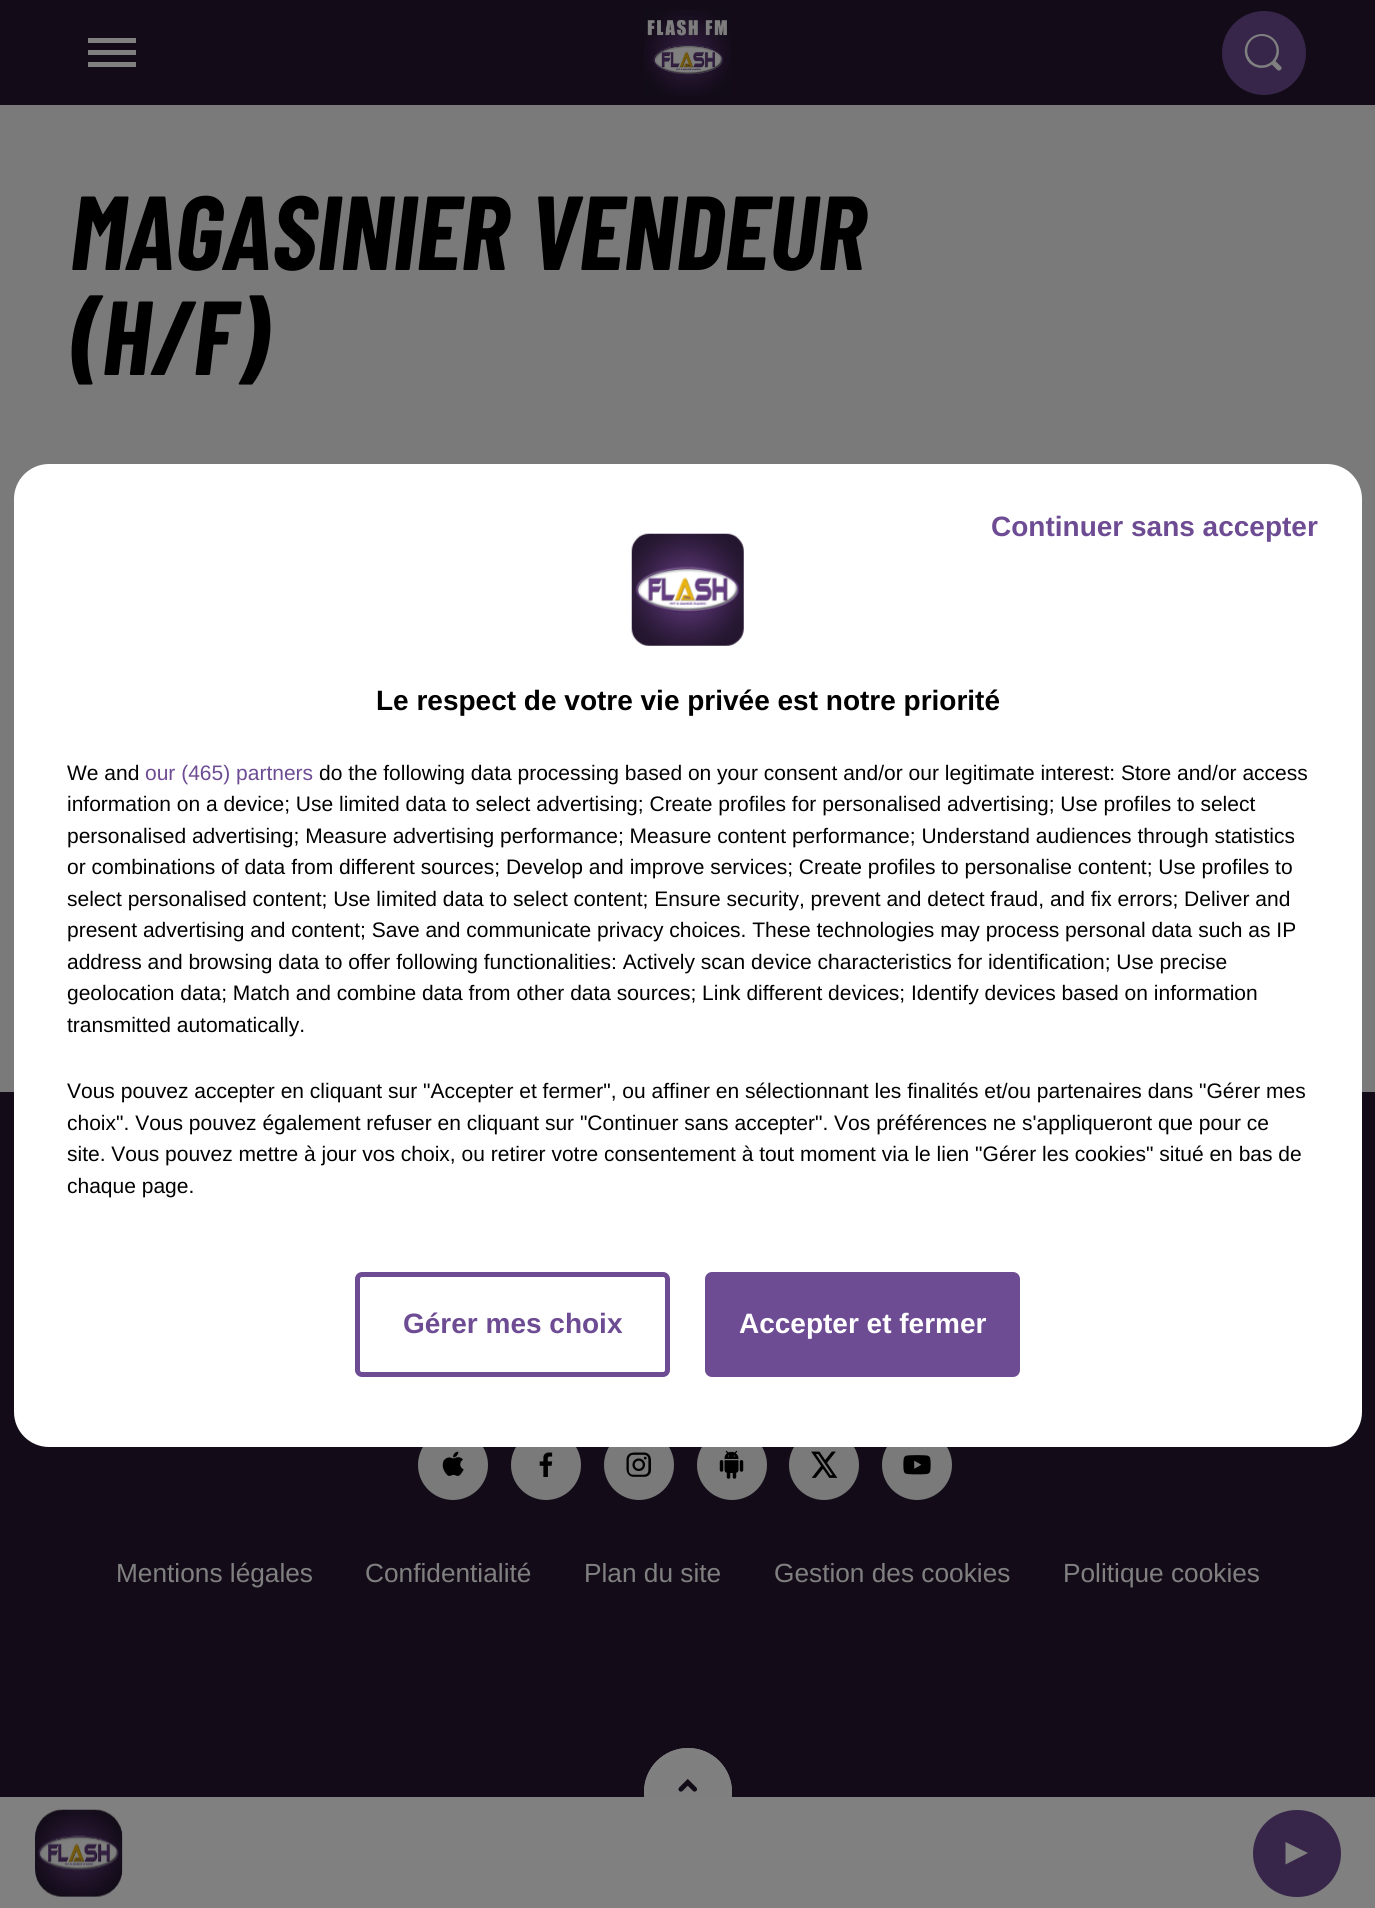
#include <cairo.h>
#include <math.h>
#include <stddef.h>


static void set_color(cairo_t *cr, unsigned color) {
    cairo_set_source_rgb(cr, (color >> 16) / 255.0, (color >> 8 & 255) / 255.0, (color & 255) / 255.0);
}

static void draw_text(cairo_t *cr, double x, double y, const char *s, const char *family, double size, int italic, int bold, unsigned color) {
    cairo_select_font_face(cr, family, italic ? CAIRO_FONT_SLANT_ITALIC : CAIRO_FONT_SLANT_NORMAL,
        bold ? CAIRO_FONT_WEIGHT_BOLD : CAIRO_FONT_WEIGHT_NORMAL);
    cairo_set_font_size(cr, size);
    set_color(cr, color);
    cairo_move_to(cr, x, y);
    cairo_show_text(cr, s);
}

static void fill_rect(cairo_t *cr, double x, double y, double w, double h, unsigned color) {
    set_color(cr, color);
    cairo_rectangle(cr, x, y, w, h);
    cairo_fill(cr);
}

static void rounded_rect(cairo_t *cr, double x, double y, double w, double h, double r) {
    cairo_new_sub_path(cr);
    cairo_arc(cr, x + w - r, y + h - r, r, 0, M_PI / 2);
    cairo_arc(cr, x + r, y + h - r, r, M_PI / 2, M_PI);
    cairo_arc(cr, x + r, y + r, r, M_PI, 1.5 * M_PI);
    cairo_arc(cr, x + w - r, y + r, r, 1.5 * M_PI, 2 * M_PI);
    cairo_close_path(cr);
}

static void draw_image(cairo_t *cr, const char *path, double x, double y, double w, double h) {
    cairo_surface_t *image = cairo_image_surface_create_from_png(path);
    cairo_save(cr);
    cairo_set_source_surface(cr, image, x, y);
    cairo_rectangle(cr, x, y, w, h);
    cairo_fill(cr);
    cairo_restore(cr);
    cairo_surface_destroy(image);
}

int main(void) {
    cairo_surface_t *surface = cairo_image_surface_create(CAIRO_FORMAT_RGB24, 1375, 1908);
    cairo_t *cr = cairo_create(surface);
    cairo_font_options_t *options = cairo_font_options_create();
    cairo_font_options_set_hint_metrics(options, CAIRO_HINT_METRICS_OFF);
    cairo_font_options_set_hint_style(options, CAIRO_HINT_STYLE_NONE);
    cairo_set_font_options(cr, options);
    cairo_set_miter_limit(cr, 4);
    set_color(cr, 0x7A7A7A);
    cairo_paint(cr);
    fill_rect(cr, 0, 0, 1375, 105, 0x130C18);
    set_color(cr, 0x808080);
    cairo_new_path(cr);
    cairo_move_to(cr, 88, 67);
    cairo_line_to(cr, 88, 62);
    cairo_line_to(cr, 136, 62);
    cairo_line_to(cr, 136, 67);
    cairo_close_path(cr);
    cairo_move_to(cr, 88, 55);
    cairo_line_to(cr, 88, 50);
    cairo_line_to(cr, 136, 50);
    cairo_line_to(cr, 136, 55);
    cairo_close_path(cr);
    cairo_move_to(cr, 88, 43);
    cairo_line_to(cr, 88, 38);
    cairo_line_to(cr, 136, 38);
    cairo_line_to(cr, 136, 43);
    cairo_close_path(cr);
    cairo_fill(cr);
    draw_image(cr, "assets/img1.png", 644, 9, 87, 87);
    set_color(cr, 0x37264A);
    cairo_arc(cr, 1264, 53, 40, 0, 2 * M_PI);
    cairo_fill_preserve(cr);
    cairo_set_line_width(cr, 4);
    cairo_stroke(cr);
    draw_image(cr, "assets/img2.png", 1244, 34, 38, 37);
    fill_rect(cr, 0, 1797, 1375, 111, 0x808080);
    fill_rect(cr, 0, 1092, 1375, 705, 0x130C18);
    cairo_save(cr);
    cairo_rectangle(cr, 0, 1748, 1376, 49);
    cairo_clip(cr);
    set_color(cr, 0x808080);
    cairo_arc(cr, 688, 1792, 44, 0, 2 * M_PI);
    cairo_fill(cr);
    cairo_set_source_rgba(cr, 0.502, 0.502, 0.502, 0.2);
    cairo_arc(cr, 688, 1792, 42, 0, 2 * M_PI);
    cairo_fill_preserve(cr);
    set_color(cr, 0x808080);
    cairo_stroke(cr);
    cairo_restore(cr);
    draw_image(cr, "assets/img3.png", 678, 1779, 19, 13);
    draw_image(cr, "assets/img4.png", 35, 1809, 88, 88);
    set_color(cr, 0x37264A);
    rounded_rect(cr, 1253, 1810, 88, 87, 43.5);
    cairo_fill(cr);
    set_color(cr, 0x808080);
    cairo_new_path(cr);
    cairo_move_to(cr, 1308, 1853);
    cairo_line_to(cr, 1285.5, 1864.5);
    cairo_line_to(cr, 1285.5, 1842);
    cairo_close_path(cr);
    cairo_fill(cr);
    draw_text(cr, 70, 270, "MAGASINIER VENDEUR", "Barlow Condensed", 105, 1, 1, 0x000000);
    draw_text(cr, 70, 375, "(H/F)", "Barlow Condensed", 105, 1, 1, 0x000000);
    set_color(cr, 0x7A7A7A);
    cairo_new_path(cr);
    cairo_arc(cr, 453, 1465, 33, 0, 2 * M_PI);
    cairo_fill_preserve(cr);
    cairo_stroke(cr);
    draw_image(cr, "assets/img5.png", 442, 1451, 22, 25);
    cairo_arc(cr, 546, 1465, 33, 0, 2 * M_PI);
    cairo_fill_preserve(cr);
    cairo_stroke(cr);
    draw_image(cr, "assets/img6.png", 539, 1452, 14, 25);
    cairo_arc(cr, 639, 1465, 33, 0, 2 * M_PI);
    cairo_fill_preserve(cr);
    cairo_stroke(cr);
    draw_image(cr, "assets/img7.png", 626, 1452, 25, 25);
    cairo_arc(cr, 732, 1465, 33, 0, 2 * M_PI);
    cairo_fill_preserve(cr);
    cairo_stroke(cr);
    draw_image(cr, "assets/img8.png", 719, 1450, 25, 29);
    cairo_arc(cr, 824, 1465, 33, 0, 2 * M_PI);
    cairo_fill_preserve(cr);
    cairo_stroke(cr);
    draw_image(cr, "assets/img9.png", 811, 1451, 27, 27);
    cairo_arc(cr, 917, 1465, 33, 0, 2 * M_PI);
    cairo_fill_preserve(cr);
    cairo_stroke(cr);
    draw_image(cr, "assets/img10.png", 903, 1455, 28, 20);
    draw_text(cr, 116, 1582, "Mentions légales", "Liberation Sans", 26.25, 0, 0, 0x808080);
    draw_text(cr, 365, 1582, "Confidentialité", "Liberation Sans", 26.25, 0, 0, 0x808080);
    draw_text(cr, 584, 1582, "Plan du site", "Liberation Sans", 26.25, 0, 0, 0x808080);
    draw_text(cr, 774, 1582, "Gestion des cookies", "Liberation Sans", 26.25, 0, 0, 0x808080);
    draw_text(cr, 1063, 1582, "Politique cookies", "Liberation Sans", 26.25, 0, 0, 0x808080);
    set_color(cr, 0xFFFFFF);
    rounded_rect(cr, 14, 464, 1348, 983, 35);
    cairo_fill(cr);
    draw_text(cr, 991, 536, "Continuer sans accepter", "Liberation Sans", 28, 0, 1, 0x6E4C94);
    rounded_rect(cr, 357.5, 1274.5, 310, 100, 4.5);
    cairo_set_line_width(cr, 5);
    cairo_stroke(cr);
    draw_text(cr, 403, 1333, "Gérer mes choix", "Liberation Sans", 28, 0, 1, 0x6E4C94);
    rounded_rect(cr, 707.5, 1274.5, 310, 100, 4.5);
    cairo_fill_preserve(cr);
    cairo_stroke(cr);
    draw_text(cr, 739, 1333, "Accepter et fermer", "Liberation Sans", 28, 0, 1, 0xFFFFFF);
    draw_image(cr, "assets/img11.png", 631, 533, 113, 113);
    draw_text(cr, 376, 710, "Le respect de votre vie privée est notre priorité", "Liberation Sans", 28, 0, 1, 0x000000);
    draw_text(cr, 67, 780, "We and", "Liberation Sans", 21, 0, 0, 0x000000);
    draw_text(cr, 145, 780, "our (465) partners", "Liberation Sans", 21, 0, 0, 0x6E4C94);
    draw_text(cr, 319, 780, "do the following data processing based on your consent and/or our legitimate interest: Store and/or access", "Liberation Sans", 21, 0, 0, 0x000000);
    draw_text(cr, 67, 811, "information on a device; Use limited data to select advertising; Create profiles for personalised advertising; Use profiles to select", "Liberation Sans", 21, 0, 0, 0x000000);
    draw_text(cr, 67, 843, "personalised advertising; Measure advertising performance; Measure content performance; Understand audiences through statistics", "Liberation Sans", 21, 0, 0, 0x000000);
    draw_text(cr, 67, 874, "or combinations of data from different sources; Develop and improve services; Create profiles to personalise content; Use profiles to", "Liberation Sans", 21, 0, 0, 0x000000);
    draw_text(cr, 67, 906, "select personalised content; Use limited data to select content; Ensure security, prevent and detect fraud, and fix errors; Deliver and", "Liberation Sans", 21, 0, 0, 0x000000);
    draw_text(cr, 67, 937, "present advertising and content; Save and communicate privacy choices. These technologies may process personal data such as IP", "Liberation Sans", 21, 0, 0, 0x000000);
    draw_text(cr, 67, 969, "address and browsing data to offer following functionalities: Actively scan device characteristics for identification; Use precise", "Liberation Sans", 21, 0, 0, 0x000000);
    draw_text(cr, 67, 1000, "geolocation data; Match and combine data from other data sources; Link different devices; Identify devices based on information", "Liberation Sans", 21, 0, 0, 0x000000);
    draw_text(cr, 67, 1032, "transmitted automatically.", "Liberation Sans", 21, 0, 0, 0x000000);
    draw_text(cr, 67, 1098, "Vous pouvez accepter en cliquant sur \"Accepter et fermer\", ou affiner en sélectionnant les finalités et/ou partenaires dans \"Gérer mes", "Liberation Sans", 21, 0, 0, 0x000000);
    draw_text(cr, 67, 1130, "choix\". Vous pouvez également refuser en cliquant sur \"Continuer sans accepter\". Vos préférences ne s'appliqueront que pour ce", "Liberation Sans", 21, 0, 0, 0x000000);
    draw_text(cr, 67, 1161, "site. Vous pouvez mettre à jour vos choix, ou retirer votre consentement à tout moment via le lien \"Gérer les cookies\" situé en bas de", "Liberation Sans", 21, 0, 0, 0x000000);
    draw_text(cr, 67, 1193, "chaque page.", "Liberation Sans", 21, 0, 0, 0x000000);
    cairo_surface_write_to_png(surface, "output.png");
    cairo_font_options_destroy(options);
    cairo_destroy(cr);
    cairo_surface_destroy(surface);
    return 0;
}
